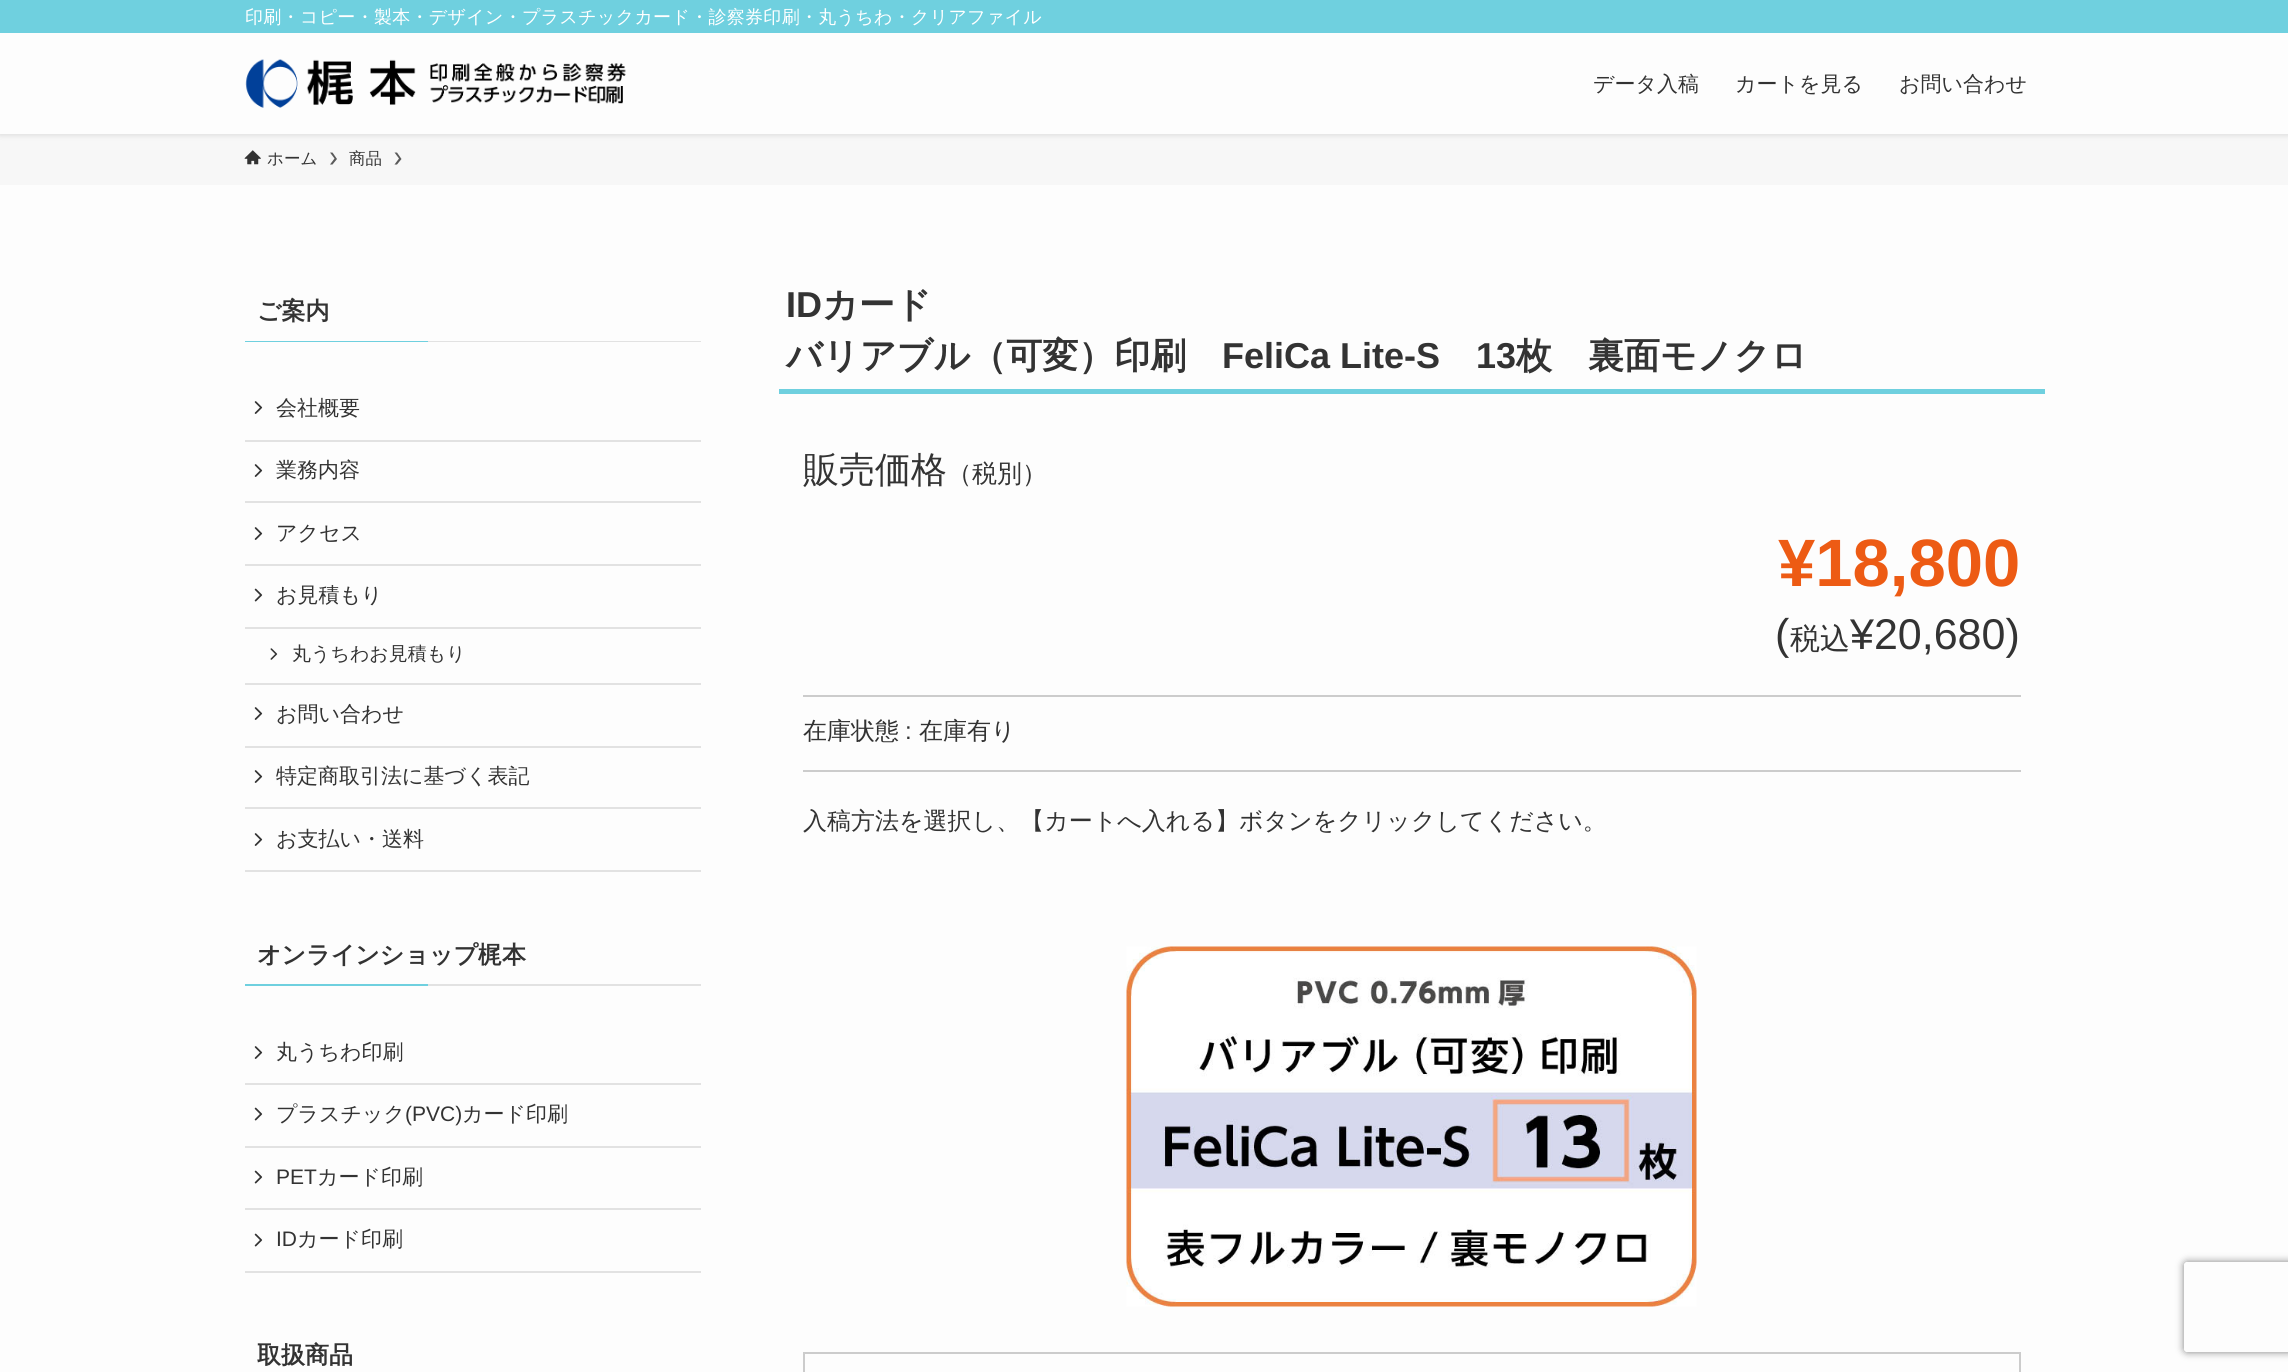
#include <cairo.h>
#include <math.h>
#include <stddef.h>


static void set_color(cairo_t *cr, unsigned color) {
    cairo_set_source_rgb(cr, (color >> 16) / 255.0, (color >> 8 & 255) / 255.0, (color & 255) / 255.0);
}

static void draw_text(cairo_t *cr, double x, double y, const char *s, const char *family, double size, int italic, int bold, unsigned color) {
    cairo_select_font_face(cr, family, italic ? CAIRO_FONT_SLANT_ITALIC : CAIRO_FONT_SLANT_NORMAL,
        bold ? CAIRO_FONT_WEIGHT_BOLD : CAIRO_FONT_WEIGHT_NORMAL);
    cairo_set_font_size(cr, size);
    set_color(cr, color);
    cairo_move_to(cr, x, y);
    cairo_show_text(cr, s);
}

static void draw_spaced(cairo_t *cr, double x, double y, const char *s, double letter, double word) {
    cairo_move_to(cr, x, y);
    while (*s) {
        char ch[5] = {0};
        int n = 0;
        do ch[n++] = *s++; while ((*s & 0xC0) == 0x80);
        cairo_show_text(cr, ch);
        cairo_rel_move_to(cr, letter + word * (*ch == ' '), 0);
    }
}

static void fill_rect(cairo_t *cr, double x, double y, double w, double h, unsigned color) {
    set_color(cr, color);
    cairo_rectangle(cr, x, y, w, h);
    cairo_fill(cr);
}

static void rounded_rect(cairo_t *cr, double x, double y, double w, double h, double r) {
    cairo_new_sub_path(cr);
    cairo_arc(cr, x + w - r, y + h - r, r, 0, M_PI / 2);
    cairo_arc(cr, x + r, y + h - r, r, M_PI / 2, M_PI);
    cairo_arc(cr, x + r, y + r, r, M_PI, 1.5 * M_PI);
    cairo_arc(cr, x + w - r, y + r, r, 1.5 * M_PI, 2 * M_PI);
    cairo_close_path(cr);
}

static void draw_shadow(cairo_t *cr, double x, double y, double w, double h, double r, double blur, double alpha) {
    cairo_push_group_with_content(cr, CAIRO_CONTENT_ALPHA);
    cairo_set_operator(cr, CAIRO_OPERATOR_SOURCE);
    for (int i = 15; i >= -15 && fmin(w, h) + blur * i / 3 > 0; i -= 2) {
        double e = blur * i / 6;
        cairo_set_source_rgba(cr, 0, 0, 0, alpha * erfc((i - 1) / 8.5) / 2);
        rounded_rect(cr, x - e, y - e, w + 2 * e, h + 2 * e, fmax(0, fmin(r + e + blur * .6, fmin(w, h) / 2 + e)));
        cairo_fill(cr);
    }
    cairo_pattern_t *soft = cairo_pop_group(cr);
    cairo_mask(cr, soft);
    cairo_pattern_destroy(soft);
}

static void draw_image(cairo_t *cr, const char *path, double x, double y, double w, double h) {
    cairo_surface_t *image = cairo_image_surface_create_from_png(path);
    cairo_save(cr);
    cairo_set_source_surface(cr, image, x, y);
    cairo_rectangle(cr, x, y, w, h);
    cairo_fill(cr);
    cairo_restore(cr);
    cairo_surface_destroy(image);
}

int main(void) {
    cairo_surface_t *surface = cairo_image_surface_create(CAIRO_FORMAT_RGB24, 2288, 1372);
    cairo_t *cr = cairo_create(surface);
    cairo_font_options_t *options = cairo_font_options_create();
    cairo_font_options_set_hint_metrics(options, CAIRO_HINT_METRICS_OFF);
    cairo_font_options_set_hint_style(options, CAIRO_HINT_STYLE_NONE);
    cairo_set_font_options(cr, options);
    cairo_set_miter_limit(cr, 4);
    set_color(cr, 0xFDFDFD);
    cairo_paint(cr);
    fill_rect(cr, 0, 134, 2288, 51, 0xF7F7F7);
    set_color(cr, 0x000000);
    draw_shadow(cr, 0, 2, 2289, 133, 0, 3, 0.12);
    fill_rect(cr, 0, 33, 2288, 101, 0xFDFDFD);
    fill_rect(cr, 0, 0, 2288, 33, 0x6FD0DF);
    cairo_select_font_face(cr, "WenQuanYi Zen Hei Medium", CAIRO_FONT_SLANT_NORMAL, CAIRO_FONT_WEIGHT_NORMAL);
    cairo_set_font_size(cr, 18);
    set_color(cr, 0xFFFFFF);
    draw_spaced(cr, 245, 23, "印刷・コピー・製本・デザイン・プラスチックカード・診察券印刷・丸うちわ・クリアファイル", 0.3, 0);
    draw_image(cr, "assets/img1.png", 245, 59, 381, 49);
    draw_text(cr, 1593, 91, "データ入稿", "WenQuanYi Zen Hei Medium", 21, 0, 0, 0x333333);
    draw_text(cr, 1735, 91, "カートを見る", "WenQuanYi Zen Hei Medium", 21, 0, 0, 0x333333);
    draw_text(cr, 1899, 91, "お問い合わせ", "WenQuanYi Zen Hei Medium", 21, 0, 0, 0x333333);
    draw_image(cr, "assets/img2.png", 244, 150, 17, 15);
    draw_text(cr, 267, 164, "ホーム", "WenQuanYi Zen Hei Medium", 16.5, 0, 0, 0x333333);
    set_color(cr, 0x5A5A5A);
    cairo_new_path(cr);
    cairo_move_to(cr, 332.5, 152.5);
    cairo_line_to(cr, 330, 152.5);
    cairo_line_to(cr, 334.5, 158.5);
    cairo_line_to(cr, 330, 164.5);
    cairo_line_to(cr, 332.5, 164.5);
    cairo_line_to(cr, 337, 159);
    cairo_close_path(cr);
    cairo_fill(cr);
    draw_text(cr, 349, 164, "商品", "WenQuanYi Zen Hei Medium", 16.5, 0, 0, 0x333333);
    set_color(cr, 0x5A5A5A);
    cairo_new_path(cr);
    cairo_move_to(cr, 397, 152.5);
    cairo_line_to(cr, 394.5, 152.5);
    cairo_line_to(cr, 399, 158.5);
    cairo_line_to(cr, 394.5, 164.5);
    cairo_line_to(cr, 397, 164.5);
    cairo_line_to(cr, 401.5, 159);
    cairo_close_path(cr);
    cairo_fill(cr);
    draw_text(cr, 257, 319, "ご案内", "WenQuanYi Zen Hei", 24, 0, 1, 0x333333);
    fill_rect(cr, 245, 341, 183, 1, 0x6FD0DF);
    fill_rect(cr, 428, 341, 273, 1, 0xE2E2E2);
    fill_rect(cr, 245, 440, 456, 2, 0xE2E2E2);
    draw_image(cr, "assets/img3.png", 254, 401, 9, 13);
    draw_text(cr, 276, 415, "会社概要", "WenQuanYi Zen Hei Medium", 21, 0, 0, 0x333333);
    fill_rect(cr, 245, 501, 456, 2, 0xE2E2E2);
    draw_image(cr, "assets/img3.png", 254, 464, 9, 13);
    draw_text(cr, 276, 477, "業務内容", "WenQuanYi Zen Hei Medium", 21, 0, 0, 0x333333);
    fill_rect(cr, 245, 564, 456, 2, 0xE2E2E2);
    draw_image(cr, "assets/img3.png", 254, 527, 9, 13);
    draw_text(cr, 276, 540, "アクセス", "WenQuanYi Zen Hei Medium", 21, 0, 0, 0x333333);
    fill_rect(cr, 245, 627, 456, 2, 0xE2E2E2);
    draw_image(cr, "assets/img4.png", 254, 588, 9, 14);
    draw_text(cr, 276, 602, "お見積もり", "WenQuanYi Zen Hei Medium", 21, 0, 0, 0x333333);
    fill_rect(cr, 245, 683, 456, 2, 0xE2E2E2);
    draw_image(cr, "assets/img5.png", 270, 648, 8, 12);
    draw_text(cr, 292, 660, "丸うちわお見積もり", "WenQuanYi Zen Hei Medium", 19, 0, 0, 0x333333);
    fill_rect(cr, 245, 746, 456, 2, 0xE2E2E2);
    draw_image(cr, "assets/img3.png", 254, 707, 9, 13);
    draw_text(cr, 276, 721, "お問い合わせ", "WenQuanYi Zen Hei Medium", 21, 0, 0, 0x333333);
    fill_rect(cr, 245, 807, 456, 2, 0xE2E2E2);
    draw_image(cr, "assets/img3.png", 254, 770, 9, 13);
    draw_text(cr, 276, 783, "特定商取引法に基づく表記", "WenQuanYi Zen Hei Medium", 21, 0, 0, 0x333333);
    fill_rect(cr, 245, 870, 456, 2, 0xE2E2E2);
    draw_image(cr, "assets/img3.png", 254, 833, 9, 13);
    draw_text(cr, 276, 846, "お支払い・送料", "WenQuanYi Zen Hei Medium", 21, 0, 0, 0x333333);
    draw_text(cr, 257, 963, "オンラインショップ梶本", "WenQuanYi Zen Hei", 24, 0, 1, 0x333333);
    fill_rect(cr, 245, 984, 183, 2, 0x6FD0DF);
    fill_rect(cr, 428, 984, 273, 2, 0xE2E2E2);
    fill_rect(cr, 245, 1083, 456, 2, 0xE2E2E2);
    draw_image(cr, "assets/img3.png", 254, 1046, 9, 13);
    draw_text(cr, 276, 1059, "丸うちわ印刷", "WenQuanYi Zen Hei Medium", 21, 0, 0, 0x333333);
    fill_rect(cr, 245, 1146, 456, 2, 0xE2E2E2);
    draw_image(cr, "assets/img4.png", 254, 1107, 9, 14);
    draw_text(cr, 276, 1121, "プラスチック", "WenQuanYi Zen Hei Medium", 21, 0, 0, 0x333333);
    draw_text(cr, 405, 1121, "(PVC)", "Liberation Sans", 21, 0, 0, 0x333333);
    draw_text(cr, 462, 1121, "カード印刷", "WenQuanYi Zen Hei Medium", 21, 0, 0, 0x333333);
    fill_rect(cr, 245, 1208, 456, 2, 0xE2E2E2);
    draw_image(cr, "assets/img4.png", 254, 1170, 9, 14);
    draw_text(cr, 276, 1184, "PET", "Liberation Sans", 21, 0, 0, 0x333333);
    draw_text(cr, 317, 1184, "カード印刷", "WenQuanYi Zen Hei Medium", 21, 0, 0, 0x333333);
    fill_rect(cr, 245, 1271, 456, 2, 0xE2E2E2);
    draw_image(cr, "assets/img4.png", 254, 1233, 9, 14);
    draw_text(cr, 276, 1246, "ID", "Liberation Sans", 21, 0, 0, 0x333333);
    draw_text(cr, 297, 1246, "カード印刷", "WenQuanYi Zen Hei Medium", 21, 0, 0, 0x333333);
    draw_text(cr, 257, 1363, "取扱商品", "WenQuanYi Zen Hei", 24, 0, 1, 0x333333);
    fill_rect(cr, 779, 389, 1266, 5, 0x6FD0DF);
    draw_text(cr, 786, 317, "ID", "Liberation Sans", 36, 0, 1, 0x333333);
    draw_text(cr, 822, 317, "カード", "WenQuanYi Zen Hei", 36, 0, 1, 0x333333);
    draw_text(cr, 786, 368, "バリアブル（可変）印刷", "WenQuanYi Zen Hei", 36, 0, 1, 0x333333);
    draw_text(cr, 1222, 368, "FeliCa Lite-S", "Liberation Sans", 36, 0, 1, 0x333333);
    draw_text(cr, 1476, 368, "13", "Liberation Sans", 36, 0, 1, 0x333333);
    draw_text(cr, 1516, 368, "枚　裏面モノクロ", "WenQuanYi Zen Hei", 36, 0, 1, 0x333333);
    fill_rect(cr, 803, 695, 1218, 2, 0xCCCCCC);
    draw_text(cr, 803, 482, "販売価格", "WenQuanYi Zen Hei Medium", 36, 0, 0, 0x333333);
    draw_text(cr, 947, 482, "（税別）", "WenQuanYi Zen Hei Medium", 25, 0, 0, 0x333333);
    draw_text(cr, 1778, 586, "¥18,800", "Liberation Sans", 67, 0, 1, 0xED5B14);
    draw_text(cr, 1775, 649, "(", "Liberation Sans", 43, 0, 0, 0x333333);
    draw_text(cr, 1790, 649, "税込", "WenQuanYi Zen Hei Medium", 30, 0, 0, 0x333333);
    draw_text(cr, 1850, 649, "¥20,680)", "Liberation Sans", 43, 0, 0, 0x333333);
    fill_rect(cr, 803, 770, 1218, 2, 0xCCCCCC);
    draw_text(cr, 803, 739, "在庫状態", "WenQuanYi Zen Hei Medium", 24, 0, 0, 0x333333);
    draw_text(cr, 905, 739, ":", "Liberation Sans", 24, 0, 0, 0x333333);
    draw_text(cr, 919, 739, "在庫有り", "WenQuanYi Zen Hei Medium", 24, 0, 0, 0x333333);
    draw_text(cr, 803, 829, "入稿方法を選択し、【カートへ入れる】ボタンをクリックしてください。", "WenQuanYi Zen Hei Medium", 24, 0, 0, 0x333333);
    draw_image(cr, "assets/img6.png", 1126, 946, 571, 361);
    fill_rect(cr, 803, 1352, 1218, 2, 0xCCCCCC);
    fill_rect(cr, 2019, 1352, 2, 20, 0xCCCCCC);
    fill_rect(cr, 803, 1352, 2, 20, 0xCCCCCC);
    cairo_save(cr);
    cairo_set_fill_rule(cr, CAIRO_FILL_RULE_EVEN_ODD);
    cairo_new_path(cr);
    cairo_move_to(cr, 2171, 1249);
    cairo_line_to(cr, 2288, 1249);
    cairo_line_to(cr, 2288, 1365);
    cairo_line_to(cr, 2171, 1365);
    cairo_close_path(cr);
    cairo_move_to(cr, 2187, 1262);
    cairo_line_to(cr, 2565, 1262);
    cairo_curve_to(cr, 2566.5, 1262, 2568, 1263.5, 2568, 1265);
    cairo_line_to(cr, 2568, 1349);
    cairo_curve_to(cr, 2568, 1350.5, 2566.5, 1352, 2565, 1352);
    cairo_line_to(cr, 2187, 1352);
    cairo_curve_to(cr, 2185.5, 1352, 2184, 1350.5, 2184, 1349);
    cairo_line_to(cr, 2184, 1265);
    cairo_curve_to(cr, 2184, 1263.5, 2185.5, 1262, 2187, 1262);
    cairo_close_path(cr);
    cairo_clip(cr);
    set_color(cr, 0x808080);
    draw_shadow(cr, 2184, 1262, 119, 90, 3, 4, 1);
    cairo_restore(cr);
    cairo_surface_write_to_png(surface, "output.png");
    cairo_font_options_destroy(options);
    cairo_destroy(cr);
    cairo_surface_destroy(surface);
    return 0;
}
